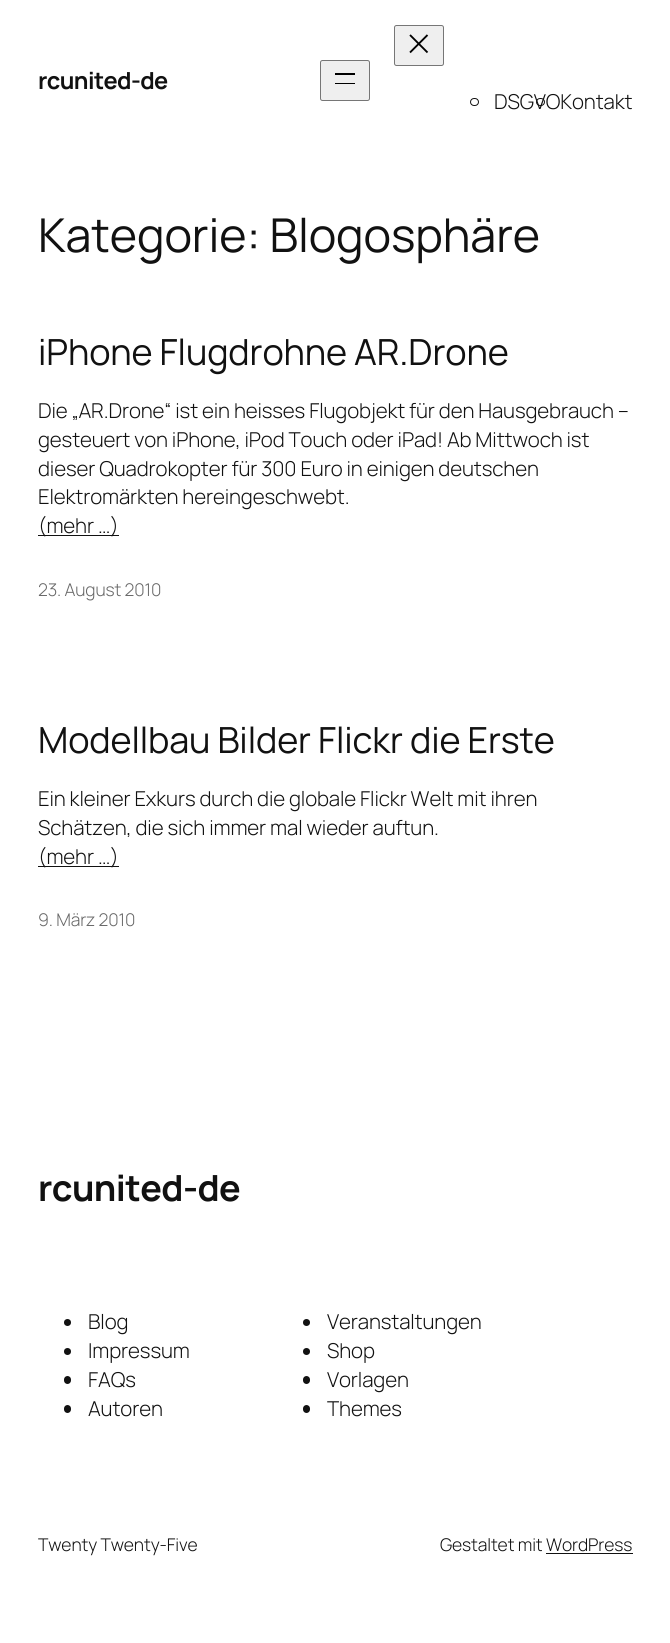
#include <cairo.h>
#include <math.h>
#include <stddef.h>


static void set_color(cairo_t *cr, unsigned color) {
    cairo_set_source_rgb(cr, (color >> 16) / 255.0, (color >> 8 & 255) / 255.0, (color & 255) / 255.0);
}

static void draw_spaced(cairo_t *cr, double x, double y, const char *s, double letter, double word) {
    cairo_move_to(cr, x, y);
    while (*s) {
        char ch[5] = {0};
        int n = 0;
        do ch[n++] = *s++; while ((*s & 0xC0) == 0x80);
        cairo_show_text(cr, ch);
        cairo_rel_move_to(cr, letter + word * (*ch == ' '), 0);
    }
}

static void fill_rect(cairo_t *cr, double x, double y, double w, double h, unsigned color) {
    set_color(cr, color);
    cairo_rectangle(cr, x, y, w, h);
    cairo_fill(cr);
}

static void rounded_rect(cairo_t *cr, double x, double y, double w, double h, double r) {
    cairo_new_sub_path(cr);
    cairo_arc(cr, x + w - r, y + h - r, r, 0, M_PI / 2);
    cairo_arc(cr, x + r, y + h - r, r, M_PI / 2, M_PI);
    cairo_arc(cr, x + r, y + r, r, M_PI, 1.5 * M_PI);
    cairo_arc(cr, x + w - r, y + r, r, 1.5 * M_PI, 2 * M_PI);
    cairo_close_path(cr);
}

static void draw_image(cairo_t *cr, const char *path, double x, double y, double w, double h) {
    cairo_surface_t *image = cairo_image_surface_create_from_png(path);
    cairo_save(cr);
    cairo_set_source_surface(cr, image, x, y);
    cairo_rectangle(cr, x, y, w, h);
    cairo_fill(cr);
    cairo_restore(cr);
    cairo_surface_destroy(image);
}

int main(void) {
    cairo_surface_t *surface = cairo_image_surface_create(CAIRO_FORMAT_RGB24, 670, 1643);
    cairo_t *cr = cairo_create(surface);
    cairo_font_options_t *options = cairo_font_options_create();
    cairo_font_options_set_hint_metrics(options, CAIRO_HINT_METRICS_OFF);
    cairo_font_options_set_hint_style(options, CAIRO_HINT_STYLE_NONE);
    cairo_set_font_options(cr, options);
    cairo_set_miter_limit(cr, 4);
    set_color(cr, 0xFFFFFF);
    cairo_paint(cr);
    cairo_select_font_face(cr, "Manrope", CAIRO_FONT_SLANT_NORMAL, CAIRO_FONT_WEIGHT_BOLD);
    cairo_set_font_size(cr, 23.5);
    set_color(cr, 0x111111);
    draw_spaced(cr, 38, 89, "rcunited-de", -0.6, 0);
    set_color(cr, 0xEFEFEF);
    rounded_rect(cr, 320.5, 60.5, 49, 40, 2);
    cairo_fill_preserve(cr);
    set_color(cr, 0x767676);
    cairo_set_line_width(cr, 1);
    cairo_stroke(cr);
    fill_rect(cr, 335, 73, 20, 2, 0x000000);
    fill_rect(cr, 335, 83, 20, 1, 0x000000);
    set_color(cr, 0xEFEFEF);
    rounded_rect(cr, 394.5, 25.5, 49, 40, 2);
    cairo_fill_preserve(cr);
    set_color(cr, 0x767676);
    cairo_stroke(cr);
    draw_image(cr, "assets/img1.png", 409, 34, 20, 20);
    rounded_rect(cr, 470.5, 98.5, 8, 7, 3.5);
    set_color(cr, 0x111111);
    cairo_stroke(cr);
    cairo_select_font_face(cr, "Manrope Light", CAIRO_FONT_SLANT_NORMAL, CAIRO_FONT_WEIGHT_NORMAL);
    cairo_set_font_size(cr, 20.5);
    draw_spaced(cr, 494, 109, "DSGVOKontakt", -0.12, 0);
    rounded_rect(cr, 536.5, 98.5, 8, 7, 3.5);
    cairo_stroke(cr);
    cairo_select_font_face(cr, "Manrope", CAIRO_FONT_SLANT_NORMAL, CAIRO_FONT_WEIGHT_NORMAL);
    cairo_set_font_size(cr, 46.6);
    draw_spaced(cr, 38, 252, "Kategorie: Blogosphäre", -0.12, 0);
    cairo_set_font_size(cr, 36);
    draw_spaced(cr, 38, 365, "iPhone Flugdrohne AR.Drone", -0.12, 0);
    cairo_select_font_face(cr, "Manrope Light", CAIRO_FONT_SLANT_NORMAL, CAIRO_FONT_WEIGHT_NORMAL);
    cairo_set_font_size(cr, 20.5);
    draw_spaced(cr, 38, 418, "Die „AR.Drone“ ist ein heisses Flugobjekt für den Hausgebrauch –", -0.12, 0);
    draw_spaced(cr, 38, 447, "gesteuert von iPhone, iPod Touch oder iPad! Ab Mittwoch ist", -0.12, 0);
    draw_spaced(cr, 38, 476, "dieser Quadrokopter für 300 Euro in einigen deutschen", -0.12, 0);
    draw_spaced(cr, 38, 504, "Elektromärkten hereingeschwebt.", -0.12, 0);
    fill_rect(cr, 38, 535, 81, 1, 0x111111);
    draw_spaced(cr, 38, 533, "(mehr …)", -0.12, 0);
    cairo_set_font_size(cr, 17.5);
    set_color(cr, 0x686868);
    draw_spaced(cr, 38, 596, "23. August 2010", -0.12, 0);
    cairo_select_font_face(cr, "Manrope", CAIRO_FONT_SLANT_NORMAL, CAIRO_FONT_WEIGHT_NORMAL);
    cairo_set_font_size(cr, 36);
    set_color(cr, 0x111111);
    draw_spaced(cr, 38, 753, "Modellbau Bilder Flickr die Erste", -0.12, 0);
    cairo_select_font_face(cr, "Manrope Light", CAIRO_FONT_SLANT_NORMAL, CAIRO_FONT_WEIGHT_NORMAL);
    cairo_set_font_size(cr, 20.5);
    draw_spaced(cr, 38, 806, "Ein kleiner Exkurs durch die globale Flickr Welt mit ihren", -0.12, 0);
    draw_spaced(cr, 38, 835, "Schätzen, die sich immer mal wieder auftun.", -0.12, 0);
    fill_rect(cr, 38, 866, 81, 1, 0x111111);
    draw_spaced(cr, 38, 864, "(mehr …)", -0.12, 0);
    cairo_set_font_size(cr, 17.5);
    set_color(cr, 0x686868);
    draw_spaced(cr, 38, 926, "9. März 2010", -0.12, 0);
    cairo_select_font_face(cr, "Manrope", CAIRO_FONT_SLANT_NORMAL, CAIRO_FONT_WEIGHT_BOLD);
    cairo_set_font_size(cr, 36);
    set_color(cr, 0x111111);
    draw_spaced(cr, 38, 1201, "rcunited-de", -0.6, 0);
    cairo_new_path(cr);
    cairo_arc(cr, 67.5, 1322.5, 3.5, 0, 2 * M_PI);
    cairo_fill(cr);
    cairo_select_font_face(cr, "Manrope Light", CAIRO_FONT_SLANT_NORMAL, CAIRO_FONT_WEIGHT_NORMAL);
    cairo_set_font_size(cr, 20.5);
    draw_spaced(cr, 88, 1329, "Blog", -0.12, 0);
    cairo_new_path(cr);
    cairo_arc(cr, 67.5, 1351.5, 3.5, 0, 2 * M_PI);
    cairo_fill(cr);
    draw_spaced(cr, 88, 1358, "Impressum", -0.12, 0);
    rounded_rect(cr, 64, 1376, 7, 8, 3.5);
    cairo_fill(cr);
    draw_spaced(cr, 88, 1387, "FAQs", -0.12, 0);
    rounded_rect(cr, 64, 1405, 7, 8, 3.5);
    cairo_fill(cr);
    draw_spaced(cr, 88, 1416, "Autoren", -0.12, 0);
    cairo_new_path(cr);
    cairo_arc(cr, 306.5, 1322.5, 3.5, 0, 2 * M_PI);
    cairo_fill(cr);
    draw_spaced(cr, 327, 1329, "Veranstaltungen", -0.12, 0);
    cairo_new_path(cr);
    cairo_arc(cr, 306.5, 1351.5, 3.5, 0, 2 * M_PI);
    cairo_fill(cr);
    draw_spaced(cr, 327, 1358, "Shop", -0.12, 0);
    rounded_rect(cr, 303, 1376, 7, 8, 3.5);
    cairo_fill(cr);
    draw_spaced(cr, 327, 1387, "Vorlagen", -0.12, 0);
    rounded_rect(cr, 303, 1405, 7, 8, 3.5);
    cairo_fill(cr);
    draw_spaced(cr, 327, 1416, "Themes", -0.12, 0);
    cairo_set_font_size(cr, 17.5);
    draw_spaced(cr, 38, 1551, "Twenty Twenty-Five", -0.12, 0);
    draw_spaced(cr, 440, 1551, "Gestaltet mit WordPress", -0.12, 0);
    fill_rect(cr, 546, 1553, 87, 1, 0x111111);
    cairo_surface_write_to_png(surface, "output.png");
    cairo_font_options_destroy(options);
    cairo_destroy(cr);
    cairo_surface_destroy(surface);
    return 0;
}
